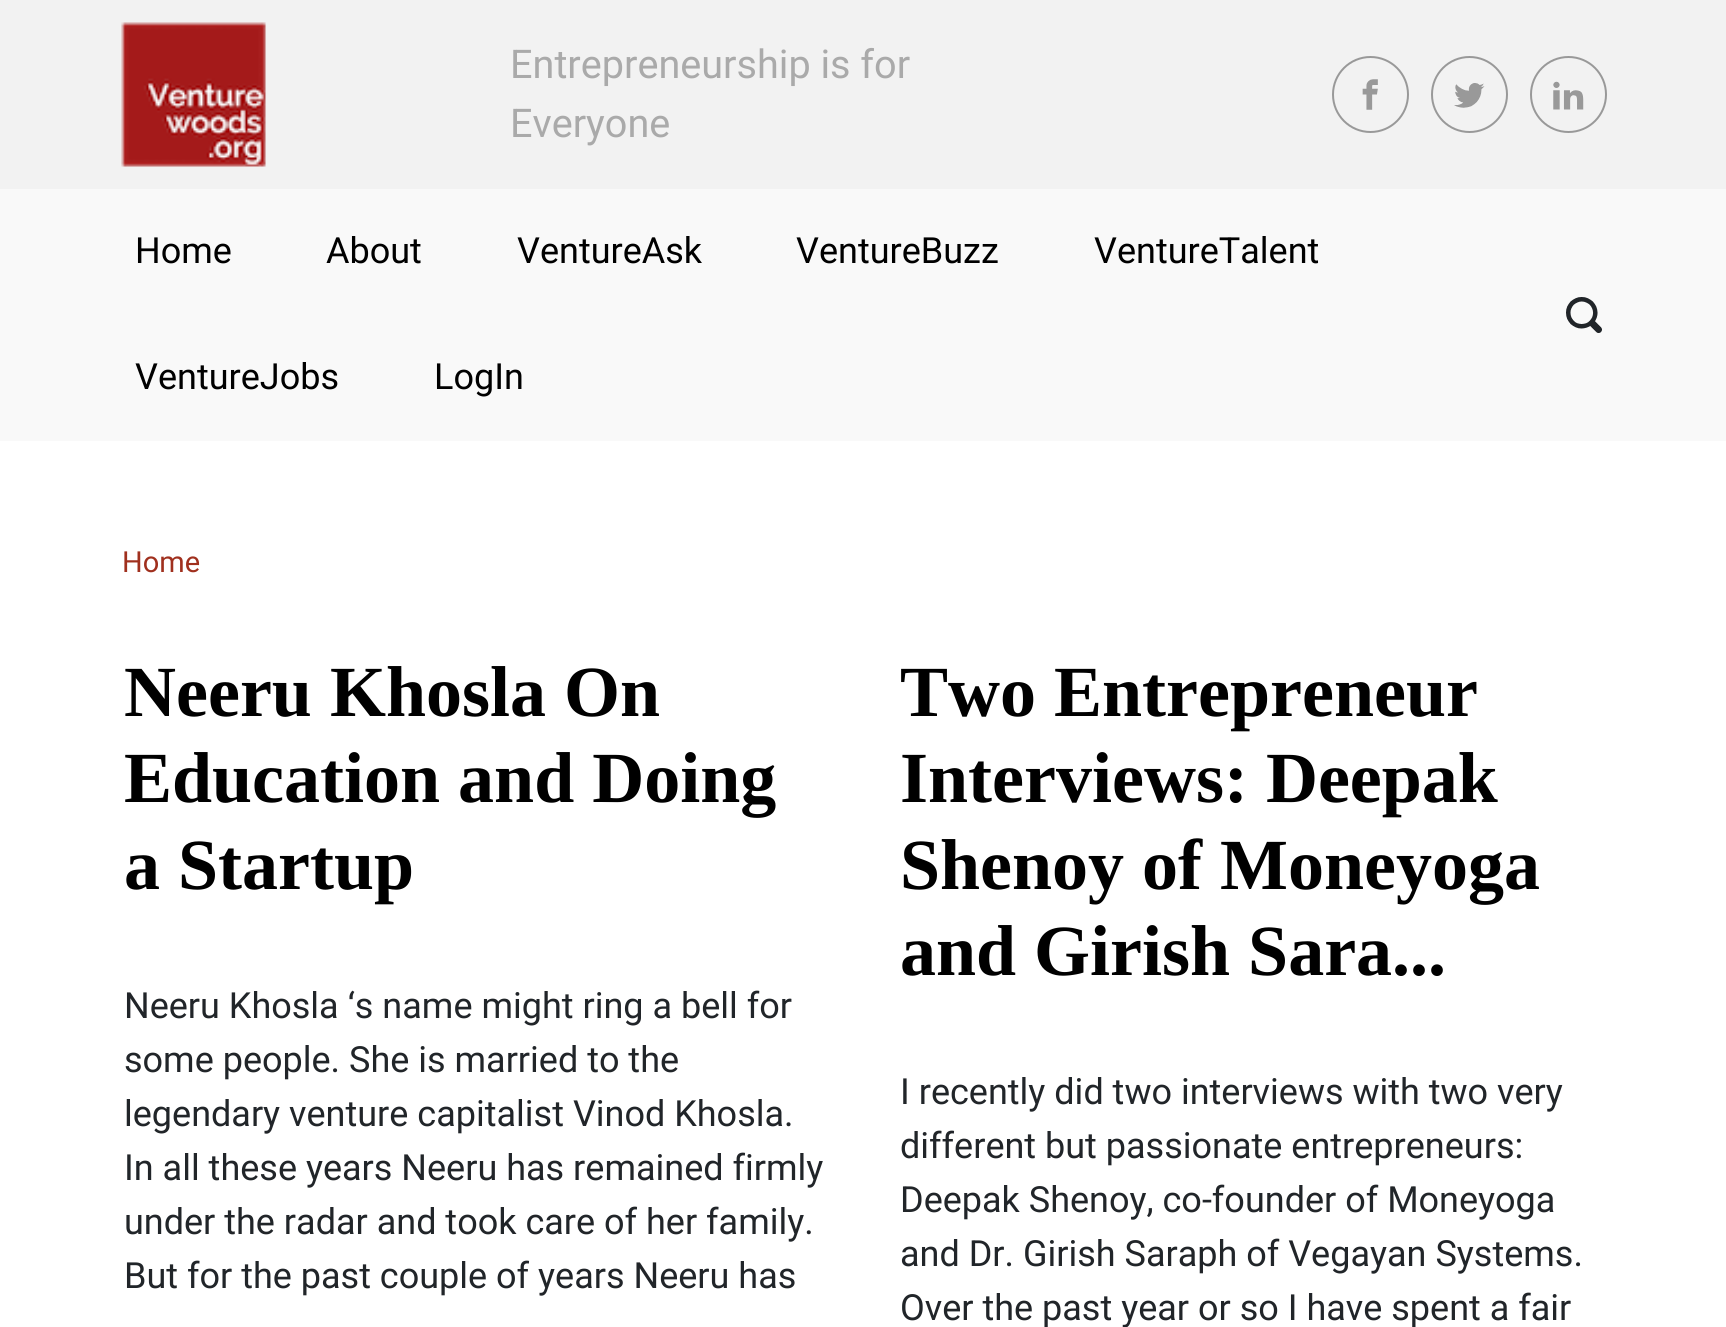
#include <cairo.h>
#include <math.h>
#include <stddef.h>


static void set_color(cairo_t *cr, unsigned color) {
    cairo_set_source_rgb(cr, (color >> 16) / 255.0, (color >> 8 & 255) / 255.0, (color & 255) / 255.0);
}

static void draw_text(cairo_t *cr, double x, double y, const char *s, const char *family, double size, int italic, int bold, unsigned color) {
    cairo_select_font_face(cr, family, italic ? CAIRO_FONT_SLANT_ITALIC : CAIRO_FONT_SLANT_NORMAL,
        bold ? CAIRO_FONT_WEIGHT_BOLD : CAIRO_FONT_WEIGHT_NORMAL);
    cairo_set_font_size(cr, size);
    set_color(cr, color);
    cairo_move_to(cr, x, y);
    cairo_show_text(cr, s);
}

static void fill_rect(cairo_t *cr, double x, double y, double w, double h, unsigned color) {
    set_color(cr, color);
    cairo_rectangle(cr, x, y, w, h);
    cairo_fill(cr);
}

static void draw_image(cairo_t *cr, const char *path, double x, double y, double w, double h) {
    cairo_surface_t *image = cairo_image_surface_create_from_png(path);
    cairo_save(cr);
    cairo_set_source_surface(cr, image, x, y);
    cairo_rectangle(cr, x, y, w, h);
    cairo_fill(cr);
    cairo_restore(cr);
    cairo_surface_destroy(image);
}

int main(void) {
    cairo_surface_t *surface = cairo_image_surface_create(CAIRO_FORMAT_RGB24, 1726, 1327);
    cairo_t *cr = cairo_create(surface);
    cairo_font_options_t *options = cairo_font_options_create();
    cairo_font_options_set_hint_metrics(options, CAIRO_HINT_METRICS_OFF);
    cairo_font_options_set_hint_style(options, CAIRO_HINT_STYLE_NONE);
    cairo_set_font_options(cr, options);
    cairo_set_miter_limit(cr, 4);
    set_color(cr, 0xF9F9F9);
    cairo_paint(cr);
    fill_rect(cr, 0, 0, 1726, 189, 0xF2F2F2);
    draw_image(cr, "assets/img1.png", 121, 22, 145, 145);
    draw_text(cr, 510, 78, "Entrepreneurship is for", "Roboto", 39.6, 0, 0, 0xAAAAAA);
    draw_text(cr, 510, 137, "Everyone", "Roboto", 39.6, 0, 0, 0xAAAAAA);
    cairo_new_path(cr);
    cairo_arc(cr, 1370.5, 94.5, 37.5, 0, 2 * M_PI);
    set_color(cr, 0x999999);
    cairo_stroke(cr);
    draw_image(cr, "assets/img2.png", 1362, 79, 16, 31);
    cairo_arc(cr, 1469.5, 94.5, 37.5, 0, 2 * M_PI);
    cairo_stroke(cr);
    draw_image(cr, "assets/img3.png", 1454, 83, 31, 25);
    cairo_arc(cr, 1568.5, 94.5, 37.5, 0, 2 * M_PI);
    cairo_stroke(cr);
    draw_image(cr, "assets/img4.png", 1553, 81, 31, 29);
    draw_text(cr, 135, 263, "Home", "Roboto", 36, 0, 0, 0x000000);
    draw_text(cr, 326, 263, "About", "Roboto", 36, 0, 0, 0x000000);
    draw_text(cr, 517, 263, "VentureAsk", "Roboto", 36, 0, 0, 0x000000);
    draw_text(cr, 796, 263, "VentureBuzz", "Roboto", 36, 0, 0, 0x000000);
    draw_text(cr, 1094, 263, "VentureTalent", "Roboto", 36, 0, 0, 0x000000);
    draw_text(cr, 135, 389, "VentureJobs", "Roboto", 36, 0, 0, 0x000000);
    draw_text(cr, 434, 389, "LogIn", "Roboto", 36, 0, 0, 0x000000);
    draw_image(cr, "assets/img5.png", 1566, 297, 36, 36);
    fill_rect(cr, 0, 441, 1726, 886, 0xFFFFFF);
    draw_text(cr, 122, 572, "Home", "Roboto", 29, 0, 0, 0xA0301E);
    draw_text(cr, 124, 716, "Neeru Khosla On", "Liberation Serif", 72, 0, 1, 0x000000);
    draw_text(cr, 124, 802, "Education and Doing", "Liberation Serif", 72, 0, 1, 0x000000);
    draw_text(cr, 124, 889, "a Startup", "Liberation Serif", 72, 0, 1, 0x000000);
    draw_text(cr, 124, 1018, "Neeru Khosla ‘s name might ring a bell for", "Roboto", 36, 0, 0, 0x212529);
    draw_text(cr, 124, 1072, "some people. She is married to the", "Roboto", 36, 0, 0, 0x212529);
    draw_text(cr, 124, 1126, "legendary venture capitalist Vinod Khosla.", "Roboto", 36, 0, 0, 0x212529);
    draw_text(cr, 124, 1180, "In all these years Neeru has remained firmly", "Roboto", 36, 0, 0, 0x212529);
    draw_text(cr, 124, 1234, "under the radar and took care of her family.", "Roboto", 36, 0, 0, 0x212529);
    draw_text(cr, 124, 1288, "But for the past couple of years Neeru has", "Roboto", 36, 0, 0, 0x212529);
    draw_text(cr, 900, 716, "Two Entrepreneur", "Liberation Serif", 72, 0, 1, 0x000000);
    draw_text(cr, 900, 802, "Interviews: Deepak", "Liberation Serif", 72, 0, 1, 0x000000);
    draw_text(cr, 900, 889, "Shenoy of Moneyoga", "Liberation Serif", 72, 0, 1, 0x000000);
    draw_text(cr, 900, 975, "and Girish Sara...", "Liberation Serif", 72, 0, 1, 0x000000);
    draw_text(cr, 900, 1104, "I recently did two interviews with two very", "Roboto", 36, 0, 0, 0x212529);
    draw_text(cr, 900, 1158, "different but passionate entrepreneurs:", "Roboto", 36, 0, 0, 0x212529);
    draw_text(cr, 900, 1212, "Deepak Shenoy, co-founder of Moneyoga", "Roboto", 36, 0, 0, 0x212529);
    draw_text(cr, 900, 1266, "and Dr. Girish Saraph of Vegayan Systems.", "Roboto", 36, 0, 0, 0x212529);
    draw_text(cr, 900, 1320, "Over the past year or so I have spent a fair", "Roboto", 36, 0, 0, 0x212529);
    cairo_surface_write_to_png(surface, "output.png");
    cairo_font_options_destroy(options);
    cairo_destroy(cr);
    cairo_surface_destroy(surface);
    return 0;
}
